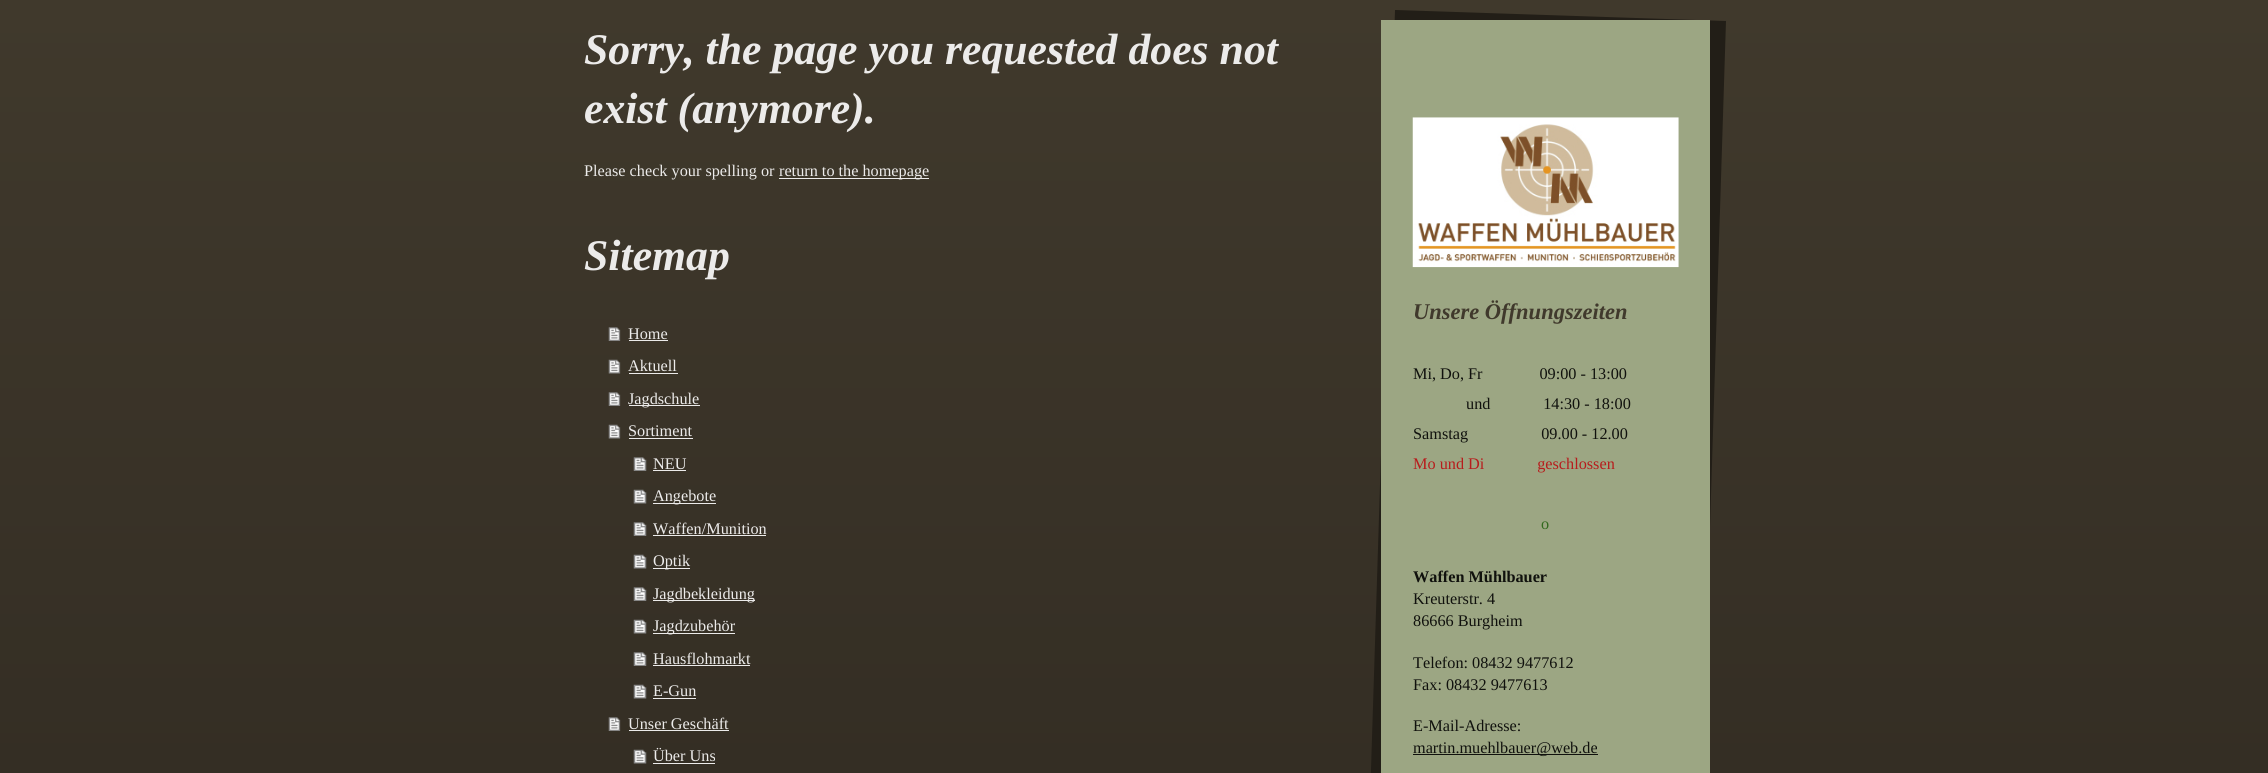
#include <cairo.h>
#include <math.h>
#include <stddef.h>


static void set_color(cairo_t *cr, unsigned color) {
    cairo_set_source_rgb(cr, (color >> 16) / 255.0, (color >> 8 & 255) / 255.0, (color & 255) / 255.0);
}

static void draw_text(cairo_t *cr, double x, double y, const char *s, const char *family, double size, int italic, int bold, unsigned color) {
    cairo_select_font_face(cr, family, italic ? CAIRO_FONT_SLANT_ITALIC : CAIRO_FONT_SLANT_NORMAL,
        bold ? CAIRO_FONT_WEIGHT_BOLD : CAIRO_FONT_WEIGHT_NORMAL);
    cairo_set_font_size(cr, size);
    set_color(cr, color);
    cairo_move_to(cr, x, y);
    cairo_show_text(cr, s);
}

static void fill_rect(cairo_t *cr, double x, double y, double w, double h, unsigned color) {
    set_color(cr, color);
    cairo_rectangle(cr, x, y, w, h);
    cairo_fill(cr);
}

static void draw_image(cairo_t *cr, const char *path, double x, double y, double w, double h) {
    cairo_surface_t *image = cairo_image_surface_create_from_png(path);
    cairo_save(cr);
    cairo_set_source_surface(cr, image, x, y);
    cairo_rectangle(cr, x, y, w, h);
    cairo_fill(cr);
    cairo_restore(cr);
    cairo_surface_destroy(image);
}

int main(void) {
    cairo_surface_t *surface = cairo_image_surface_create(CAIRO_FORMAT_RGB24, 2268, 773);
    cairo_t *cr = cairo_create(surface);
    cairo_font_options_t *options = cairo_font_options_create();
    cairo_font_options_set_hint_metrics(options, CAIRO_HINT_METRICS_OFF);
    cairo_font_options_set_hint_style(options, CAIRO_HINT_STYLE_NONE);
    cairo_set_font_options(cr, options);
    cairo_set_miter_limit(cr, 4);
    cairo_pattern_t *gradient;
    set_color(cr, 0xFFFFFF);
    cairo_paint(cr);
    gradient = cairo_pattern_create_linear(0, 0, 0, 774);
    cairo_pattern_add_color_stop_rgba(gradient, 0, 0.251, 0.224, 0.173, 1);
    cairo_pattern_add_color_stop_rgba(gradient, 1, 0.204, 0.18, 0.141, 1);
    cairo_set_source(cr, gradient);
    cairo_pattern_destroy(gradient);
    cairo_rectangle(cr, 0, 0, 2268, 773);
    cairo_fill(cr);
    draw_text(cr, 584, 64, "Sorry, the page you requested does not", "Liberation Serif", 43.75, 1, 1, 0xECEBEA);
    draw_text(cr, 584, 123, "exist (anymore).", "Liberation Serif", 43.75, 1, 1, 0xECEBEA);
    draw_text(cr, 584, 176, "Please check your spelling or", "Liberation Serif", 16.25, 0, 0, 0xECEBEA);
    fill_rect(cr, 779, 178, 150, 1, 0xECEBEA);
    draw_text(cr, 779, 176, "return to the homepage", "Liberation Serif", 16.25, 0, 0, 0xECEBEA);
    draw_text(cr, 584, 270, "Sitemap", "Liberation Serif", 43.75, 1, 1, 0xECEBEA);
    draw_image(cr, "assets/img1.png", 608, 327, 13, 14);
    draw_text(cr, 628, 339, "Home", "Liberation Serif", 16.25, 0, 0, 0xECEBEA);
    fill_rect(cr, 629, 340, 39, 1, 0xECEBEA);
    draw_image(cr, "assets/img2.png", 608, 359, 13, 15);
    draw_text(cr, 628, 371, "Aktuell", "Liberation Serif", 16.25, 0, 0, 0xECEBEA);
    fill_rect(cr, 629, 373, 49, 1, 0xECEBEA);
    draw_image(cr, "assets/img3.png", 608, 392, 13, 14);
    fill_rect(cr, 629, 405, 71, 1, 0xECEBEA);
    draw_text(cr, 628, 404, "Jagdschule", "Liberation Serif", 16.25, 0, 0, 0xECEBEA);
    draw_image(cr, "assets/img4.png", 608, 424, 13, 15);
    draw_text(cr, 628, 436, "Sortiment", "Liberation Serif", 16.25, 0, 0, 0xECEBEA);
    fill_rect(cr, 629, 438, 64, 1, 0xECEBEA);
    draw_image(cr, "assets/img5.png", 633, 457, 14, 14);
    draw_text(cr, 653, 469, "NEU", "Liberation Serif", 16.25, 0, 0, 0xECEBEA);
    fill_rect(cr, 653, 470, 33, 1, 0xECEBEA);
    draw_image(cr, "assets/img6.png", 633, 489, 14, 15);
    fill_rect(cr, 653, 503, 63, 1, 0xECEBEA);
    draw_text(cr, 653, 501, "Angebote", "Liberation Serif", 16.25, 0, 0, 0xECEBEA);
    draw_image(cr, "assets/img7.png", 633, 522, 14, 14);
    draw_text(cr, 653, 534, "Waffen/Munition", "Liberation Serif", 16.25, 0, 0, 0xECEBEA);
    fill_rect(cr, 653, 535, 113, 1, 0xECEBEA);
    draw_image(cr, "assets/img8.png", 633, 554, 14, 15);
    fill_rect(cr, 653, 568, 37, 1, 0xECEBEA);
    draw_text(cr, 653, 566, "Optik", "Liberation Serif", 16.25, 0, 0, 0xECEBEA);
    draw_image(cr, "assets/img9.png", 633, 587, 14, 14);
    fill_rect(cr, 653, 600, 102, 1, 0xECEBEA);
    draw_text(cr, 653, 599, "Jagdbekleidung", "Liberation Serif", 16.25, 0, 0, 0xECEBEA);
    draw_image(cr, "assets/img10.png", 633, 619, 14, 15);
    fill_rect(cr, 653, 633, 82, 1, 0xECEBEA);
    draw_text(cr, 653, 631, "Jagdzubehör", "Liberation Serif", 16.25, 0, 0, 0xECEBEA);
    draw_image(cr, "assets/img11.png", 633, 652, 14, 14);
    draw_text(cr, 653, 664, "Hausflohmarkt", "Liberation Serif", 16.25, 0, 0, 0xECEBEA);
    fill_rect(cr, 653, 665, 97, 1, 0xECEBEA);
    draw_image(cr, "assets/img12.png", 633, 684, 14, 15);
    draw_text(cr, 653, 696, "E-Gun", "Liberation Serif", 16.25, 0, 0, 0xECEBEA);
    fill_rect(cr, 653, 698, 43, 1, 0xECEBEA);
    draw_image(cr, "assets/img13.png", 608, 717, 13, 14);
    draw_text(cr, 628, 729, "Unser Geschäft", "Liberation Serif", 16.25, 0, 0, 0xECEBEA);
    fill_rect(cr, 629, 730, 100, 1, 0xECEBEA);
    draw_image(cr, "assets/img14.png", 633, 749, 14, 15);
    draw_text(cr, 653, 761, "Über Uns", "Liberation Serif", 16.25, 0, 0, 0xECEBEA);
    fill_rect(cr, 653, 763, 62, 1, 0xECEBEA);
    set_color(cr, 0x221E17);
    cairo_new_path(cr);
    cairo_move_to(cr, 1395, 10);
    cairo_line_to(cr, 1726, 21);
    cairo_line_to(cr, 1696, 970);
    cairo_line_to(cr, 1365, 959);
    cairo_close_path(cr);
    cairo_fill(cr);
    fill_rect(cr, 1381, 20, 329, 753, 0x9CA683);
    draw_image(cr, "assets/img15.png", 1412, 117, 267, 151);
    draw_text(cr, 1413, 319, "Unsere Öffnungszeiten", "Liberation Serif", 22.5, 1, 1, 0x40392C);
    draw_text(cr, 1413, 379, "Mi, Do, Fr              09:00 - 13:00", "Liberation Serif", 16.25, 0, 0, 0x10110D);
    draw_text(cr, 1466, 409, "und             14:30 - 18:00", "Liberation Serif", 16.25, 0, 0, 0x10110D);
    draw_text(cr, 1413, 439, "Samstag                  09.00 - 12.00", "Liberation Serif", 16.25, 0, 0, 0x10110D);
    draw_text(cr, 1413, 469, "Mo und Di             geschlossen", "Liberation Serif", 16.25, 0, 0, 0xB71C1C);
    draw_text(cr, 1541, 529, "o", "Liberation Serif", 16.25, 0, 0, 0x32691E);
    draw_text(cr, 1413, 582, "Waffen Mühlbauer", "Liberation Serif", 16.25, 0, 1, 0x10110D);
    draw_text(cr, 1413, 604, "Kreuterstr. 4", "Liberation Serif", 16.25, 0, 0, 0x10110D);
    draw_text(cr, 1413, 626, "86666 Burgheim", "Liberation Serif", 16.25, 0, 0, 0x10110D);
    draw_text(cr, 1413, 668, "Telefon: 08432 9477612", "Liberation Serif", 16.25, 0, 0, 0x10110D);
    draw_text(cr, 1413, 690, "Fax: 08432 9477613", "Liberation Serif", 16.25, 0, 0, 0x10110D);
    draw_text(cr, 1413, 731, "E-Mail-Adresse:", "Liberation Serif", 16.25, 0, 0, 0x10110D);
    fill_rect(cr, 1413, 754, 185, 1, 0x10110D);
    draw_text(cr, 1413, 753, "martin.muehlbauer@web.de", "Liberation Serif", 16.25, 0, 0, 0x10110D);
    cairo_surface_write_to_png(surface, "output.png");
    cairo_font_options_destroy(options);
    cairo_destroy(cr);
    cairo_surface_destroy(surface);
    return 0;
}
